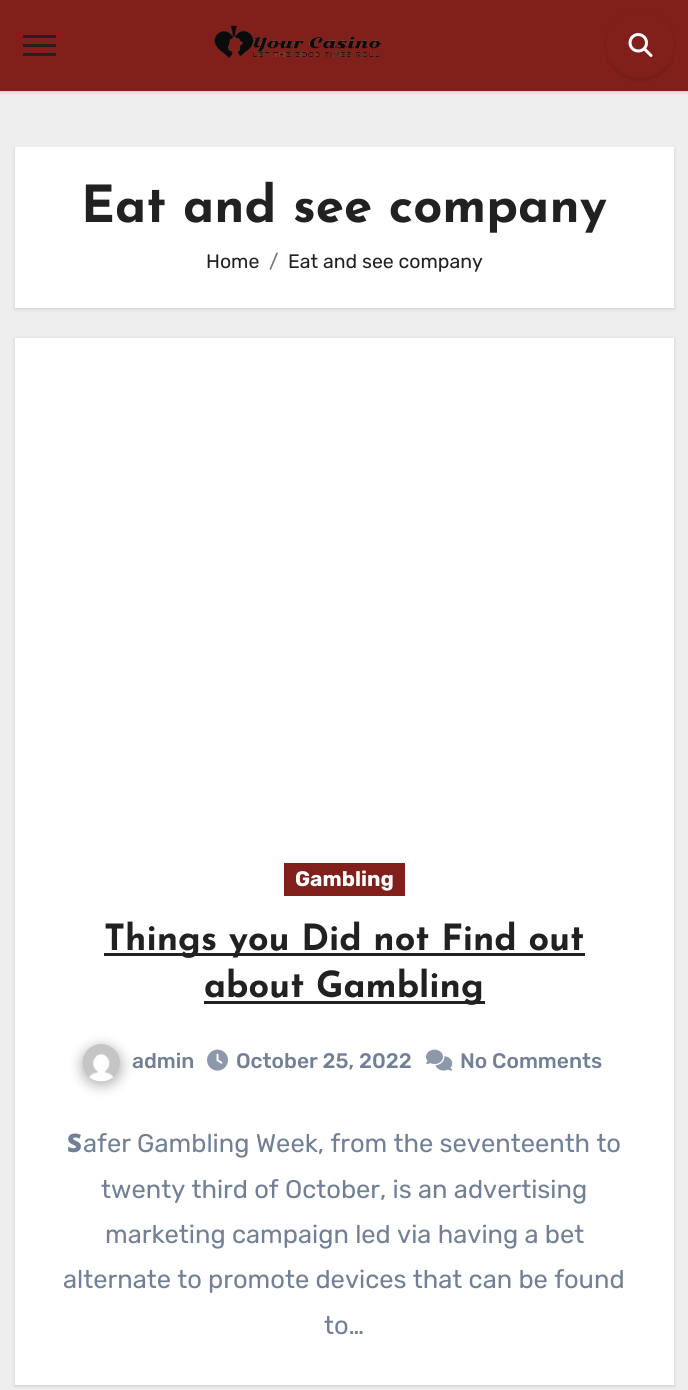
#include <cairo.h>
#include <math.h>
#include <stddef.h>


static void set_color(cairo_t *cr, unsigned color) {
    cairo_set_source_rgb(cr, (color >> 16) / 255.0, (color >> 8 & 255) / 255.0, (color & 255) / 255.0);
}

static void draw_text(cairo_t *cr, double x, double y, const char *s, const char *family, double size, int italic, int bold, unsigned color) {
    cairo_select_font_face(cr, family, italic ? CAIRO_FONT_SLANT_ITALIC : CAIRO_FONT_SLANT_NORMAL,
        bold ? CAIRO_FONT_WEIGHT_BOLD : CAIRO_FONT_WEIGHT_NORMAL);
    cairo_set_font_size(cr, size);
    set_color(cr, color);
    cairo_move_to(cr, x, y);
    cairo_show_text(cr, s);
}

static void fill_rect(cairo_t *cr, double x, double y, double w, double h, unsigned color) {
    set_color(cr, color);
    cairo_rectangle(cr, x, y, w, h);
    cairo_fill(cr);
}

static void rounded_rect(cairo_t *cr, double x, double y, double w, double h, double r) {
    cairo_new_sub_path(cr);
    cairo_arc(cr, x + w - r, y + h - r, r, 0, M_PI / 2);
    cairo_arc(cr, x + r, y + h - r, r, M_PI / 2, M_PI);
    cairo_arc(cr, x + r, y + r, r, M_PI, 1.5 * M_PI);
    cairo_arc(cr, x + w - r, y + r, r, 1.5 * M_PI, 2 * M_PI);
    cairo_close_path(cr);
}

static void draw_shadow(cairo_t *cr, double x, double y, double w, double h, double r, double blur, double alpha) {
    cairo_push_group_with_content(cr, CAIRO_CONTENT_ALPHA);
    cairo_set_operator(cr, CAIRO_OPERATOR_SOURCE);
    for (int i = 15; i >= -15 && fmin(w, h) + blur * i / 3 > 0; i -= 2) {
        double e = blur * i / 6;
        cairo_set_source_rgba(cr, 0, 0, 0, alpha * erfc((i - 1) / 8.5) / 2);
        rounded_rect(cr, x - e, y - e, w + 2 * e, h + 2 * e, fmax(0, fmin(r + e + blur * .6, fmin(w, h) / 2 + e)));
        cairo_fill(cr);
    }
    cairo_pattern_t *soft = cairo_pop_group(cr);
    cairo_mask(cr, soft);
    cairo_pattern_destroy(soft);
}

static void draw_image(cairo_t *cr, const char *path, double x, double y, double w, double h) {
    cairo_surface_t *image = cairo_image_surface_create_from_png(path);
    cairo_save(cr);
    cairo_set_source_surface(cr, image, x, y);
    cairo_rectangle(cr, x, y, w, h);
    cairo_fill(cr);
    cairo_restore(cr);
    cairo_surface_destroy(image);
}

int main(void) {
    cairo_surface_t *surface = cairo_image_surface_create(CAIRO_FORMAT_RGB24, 688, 1390);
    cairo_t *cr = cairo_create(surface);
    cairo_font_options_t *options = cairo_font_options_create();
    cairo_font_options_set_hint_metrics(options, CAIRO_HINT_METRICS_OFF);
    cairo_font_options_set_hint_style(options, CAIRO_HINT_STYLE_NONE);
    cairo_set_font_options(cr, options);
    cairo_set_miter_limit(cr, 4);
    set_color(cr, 0xEEEEEE);
    cairo_paint(cr);
    set_color(cr, 0x000000);
    draw_shadow(cr, 0, 2, 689, 90, 0, 2, 0.15);
    fill_rect(cr, 0, 0, 688, 91, 0x81201A);
    fill_rect(cr, 23, 35, 33, 3, 0x212121);
    fill_rect(cr, 23, 44, 33, 3, 0x212121);
    fill_rect(cr, 23, 53, 33, 3, 0x212121);
    draw_image(cr, "assets/img1.png", 214, 25, 170, 40);
    set_color(cr, 0x000000);
    draw_shadow(cr, 606, 12, 68, 68, 34, 2, 0.15);
    set_color(cr, 0x81201A);
    rounded_rect(cr, 606, 11, 68, 67, 33.5);
    cairo_fill(cr);
    draw_image(cr, "assets/img2.png", 628, 33, 25, 24);
    set_color(cr, 0x000000);
    draw_shadow(cr, 15, 149, 659, 160, 0, 2, 0.15);
    fill_rect(cr, 15, 147, 659, 161, 0xFFFFFF);
    draw_text(cr, 81, 222, "Eat and see company", "Josefin Sans", 51, 0, 1, 0x212121);
    draw_text(cr, 206, 268, "Home", "Rubik Light", 19.5, 0, 0, 0x212121);
    draw_text(cr, 269, 268, "/", "Rubik Light", 19.5, 0, 0, 0x6C757D);
    draw_text(cr, 288, 268, "Eat and see company", "Rubik Light", 19.5, 0, 0, 0x212121);
    set_color(cr, 0x000000);
    draw_shadow(cr, 15, 339, 659, 1047, 0, 2, 0.15);
    fill_rect(cr, 15, 338, 659, 1047, 0xFFFFFF);
    fill_rect(cr, 284, 863, 121, 33, 0x81201A);
    draw_text(cr, 295, 886, "Gambling", "Rubik", 21, 0, 1, 0xFFFFFF);
    fill_rect(cr, 104, 953, 481, 3, 0x212121);
    draw_text(cr, 104, 950, "Things you Did not Find out", "Josefin Sans", 36, 0, 1, 0x212121);
    fill_rect(cr, 204, 1001, 281, 3, 0x212121);
    draw_text(cr, 204, 997, "about Gambling", "Josefin Sans", 36, 0, 1, 0x212121);
    set_color(cr, 0x212121);
    draw_shadow(cr, 81, 1046, 41, 40, 20, 6, 0.3);
    draw_image(cr, "assets/img3.png", 82, 1044, 38, 38);
    draw_text(cr, 132, 1068, "admin", "Rubik Medium", 21, 0, 0, 0x718096);
    draw_image(cr, "assets/img4.png", 207, 1049, 21, 22);
    draw_text(cr, 236, 1068, "October 25, 2022", "Rubik Medium", 21, 0, 0, 0x718096);
    draw_image(cr, "assets/img5.png", 426, 1049, 27, 22);
    draw_text(cr, 460, 1068, "No Comments", "Rubik Medium", 21, 0, 0, 0x718096);
    draw_text(cr, 67, 1152, "S", "Noto Sans Black", 25.5, 0, 0, 0x718096);
    draw_text(cr, 83, 1152, "afer Gambling Week, from the seventeenth to", "Rubik Light", 25.5, 0, 0, 0x718096);
    draw_text(cr, 101, 1198, "twenty third of October, is an advertising", "Rubik Light", 25.5, 0, 0, 0x718096);
    draw_text(cr, 105, 1243, "marketing campaign led via having a bet", "Rubik Light", 25.5, 0, 0, 0x718096);
    draw_text(cr, 63, 1288, "alternate to promote devices that can be found", "Rubik Light", 25.5, 0, 0, 0x718096);
    draw_text(cr, 324, 1334, "to…", "Rubik Light", 25.5, 0, 0, 0x718096);
    cairo_surface_write_to_png(surface, "output.png");
    cairo_font_options_destroy(options);
    cairo_destroy(cr);
    cairo_surface_destroy(surface);
    return 0;
}
